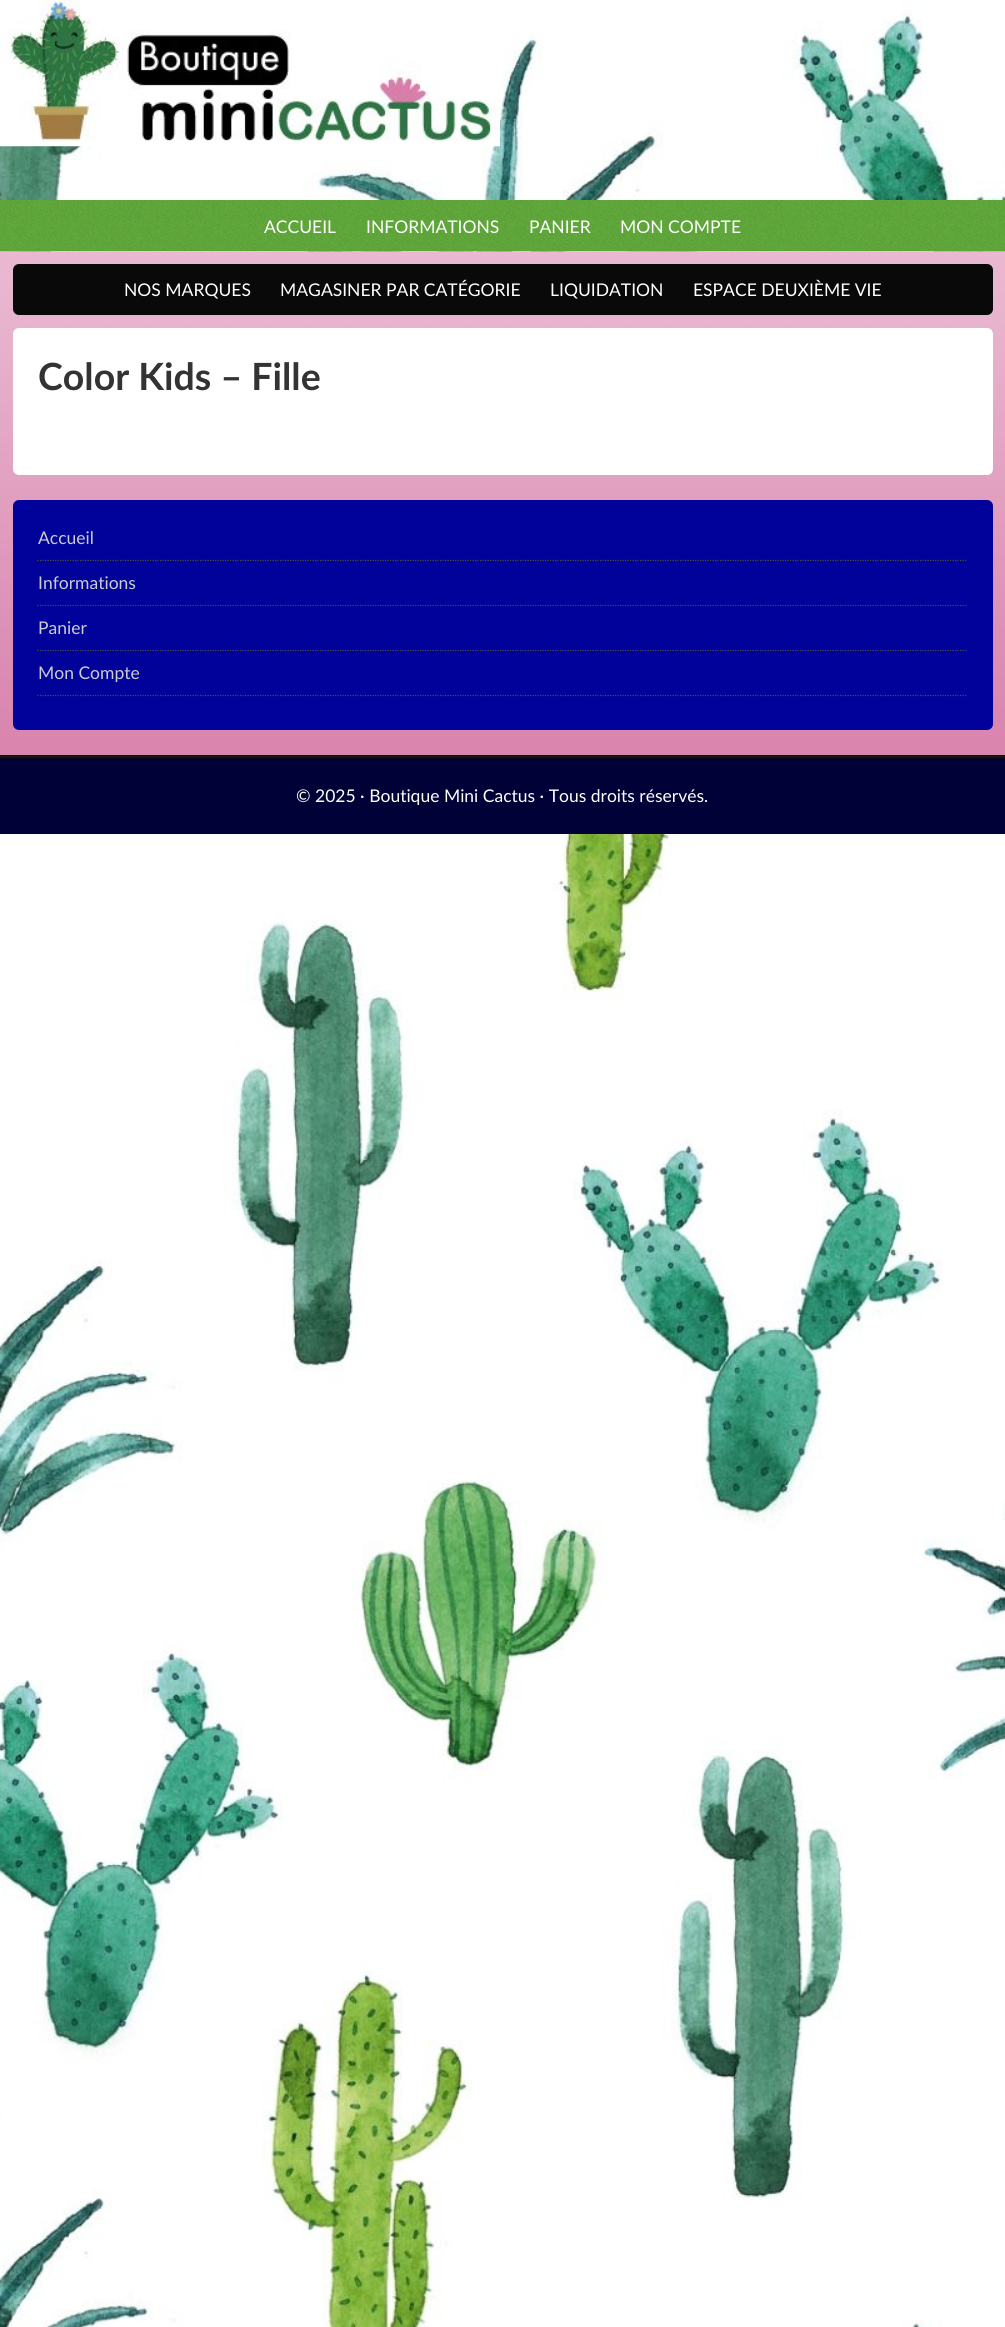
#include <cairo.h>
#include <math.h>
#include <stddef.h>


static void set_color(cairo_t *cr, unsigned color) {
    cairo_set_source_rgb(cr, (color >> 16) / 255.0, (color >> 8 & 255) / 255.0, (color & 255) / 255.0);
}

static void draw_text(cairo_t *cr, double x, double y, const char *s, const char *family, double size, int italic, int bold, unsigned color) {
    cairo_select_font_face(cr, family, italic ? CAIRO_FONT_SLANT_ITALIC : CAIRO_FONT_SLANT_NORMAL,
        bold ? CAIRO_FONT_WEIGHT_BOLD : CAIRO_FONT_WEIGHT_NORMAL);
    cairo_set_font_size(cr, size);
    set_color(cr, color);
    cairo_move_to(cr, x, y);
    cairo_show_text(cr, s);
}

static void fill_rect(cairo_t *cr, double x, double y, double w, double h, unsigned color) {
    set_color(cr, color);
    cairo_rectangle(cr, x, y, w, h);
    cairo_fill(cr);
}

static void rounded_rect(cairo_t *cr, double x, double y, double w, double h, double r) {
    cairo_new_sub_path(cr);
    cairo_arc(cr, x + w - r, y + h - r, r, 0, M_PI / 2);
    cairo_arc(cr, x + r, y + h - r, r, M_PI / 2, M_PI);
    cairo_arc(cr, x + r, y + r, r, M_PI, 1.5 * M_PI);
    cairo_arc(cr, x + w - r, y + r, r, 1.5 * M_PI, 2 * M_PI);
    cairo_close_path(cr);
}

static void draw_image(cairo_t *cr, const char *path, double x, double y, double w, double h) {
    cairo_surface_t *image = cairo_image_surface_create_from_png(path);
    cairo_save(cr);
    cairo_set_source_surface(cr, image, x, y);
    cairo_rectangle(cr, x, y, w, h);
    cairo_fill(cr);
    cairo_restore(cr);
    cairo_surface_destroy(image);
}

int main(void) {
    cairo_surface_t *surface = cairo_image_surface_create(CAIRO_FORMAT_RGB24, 1005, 2327);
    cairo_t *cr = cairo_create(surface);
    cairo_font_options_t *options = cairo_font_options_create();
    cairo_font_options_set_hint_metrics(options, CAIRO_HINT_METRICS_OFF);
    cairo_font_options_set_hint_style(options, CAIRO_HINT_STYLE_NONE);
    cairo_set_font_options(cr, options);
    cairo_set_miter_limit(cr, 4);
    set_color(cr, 0xFFFFFF);
    cairo_paint(cr);
    draw_image(cr, "assets/img1.png", 0, 0, 1005, 2327);
    draw_image(cr, "assets/img2.png", 0, 0, 500, 147);
    draw_image(cr, "assets/img3.png", 0, 200, 1005, 52);
    draw_text(cr, 264, 233, "ACCUEIL", "Lato", 17.5, 0, 0, 0xFFFFFF);
    draw_text(cr, 366, 233, "INFORMATIONS", "Lato", 17.5, 0, 0, 0xFFFFFF);
    draw_text(cr, 529, 233, "PANIER", "Lato", 17.5, 0, 0, 0xFFFFFF);
    draw_text(cr, 620, 233, "MON COMPTE", "Lato", 17.5, 0, 0, 0xFFFFFF);
    draw_image(cr, "assets/img4.png", 0, 251, 1005, 504);
    set_color(cr, 0x090909);
    rounded_rect(cr, 13, 264, 980, 51, 6);
    cairo_fill(cr);
    draw_text(cr, 124, 296, "NOS MARQUES", "Lato", 17.5, 0, 0, 0xFFFFFF);
    draw_text(cr, 280, 296, "MAGASINER PAR CATÉGORIE", "Lato", 17.5, 0, 0, 0xFFFFFF);
    draw_text(cr, 550, 296, "LIQUIDATION", "Lato", 17.5, 0, 0, 0xFFFFFF);
    draw_text(cr, 693, 296, "ESPACE DEUXIÈME VIE", "Lato", 17.5, 0, 0, 0xFFFFFF);
    rounded_rect(cr, 13, 328, 980, 147, 6);
    cairo_fill(cr);
    draw_text(cr, 38, 390, "Color Kids – Fille", "Lato", 37.5, 0, 1, 0x333333);
    set_color(cr, 0x01029A);
    rounded_rect(cr, 13, 500, 980, 230, 6);
    cairo_fill(cr);
    cairo_new_path(cr);
    cairo_move_to(cr, 37.5, 560.5);
    cairo_line_to(cr, 967.5, 560.5);
    set_color(cr, 0x494949);
    cairo_set_line_width(cr, 1.2);
    cairo_set_dash(cr, (double[]){1.25, 1.25}, 2, 0);
    cairo_stroke(cr);
    draw_text(cr, 38, 544, "Accueil", "Lato", 17.5, 0, 0, 0xCCCCCC);
    cairo_new_path(cr);
    cairo_move_to(cr, 37.5, 605.5);
    cairo_line_to(cr, 967.5, 605.5);
    set_color(cr, 0x494949);
    cairo_stroke(cr);
    draw_text(cr, 38, 589, "Informations", "Lato", 17.5, 0, 0, 0xCCCCCC);
    cairo_new_path(cr);
    cairo_move_to(cr, 37.5, 650.5);
    cairo_line_to(cr, 967.5, 650.5);
    set_color(cr, 0x494949);
    cairo_stroke(cr);
    draw_text(cr, 38, 634, "Panier", "Lato", 17.5, 0, 0, 0xCCCCCC);
    cairo_new_path(cr);
    cairo_move_to(cr, 37.5, 695.5);
    cairo_line_to(cr, 967.5, 695.5);
    set_color(cr, 0x494949);
    cairo_stroke(cr);
    draw_text(cr, 38, 679, "Mon Compte", "Lato", 17.5, 0, 0, 0xCCCCCC);
    fill_rect(cr, 0, 758, 1005, 76, 0x000136);
    draw_image(cr, "assets/img5.png", 0, 755, 1005, 4);
    draw_text(cr, 296, 802, "© 2025 · Boutique Mini Cactus · Tous droits réservés.", "Lato", 17.5, 0, 0, 0xFFFFFF);
    cairo_surface_write_to_png(surface, "output.png");
    cairo_font_options_destroy(options);
    cairo_destroy(cr);
    cairo_surface_destroy(surface);
    return 0;
}
